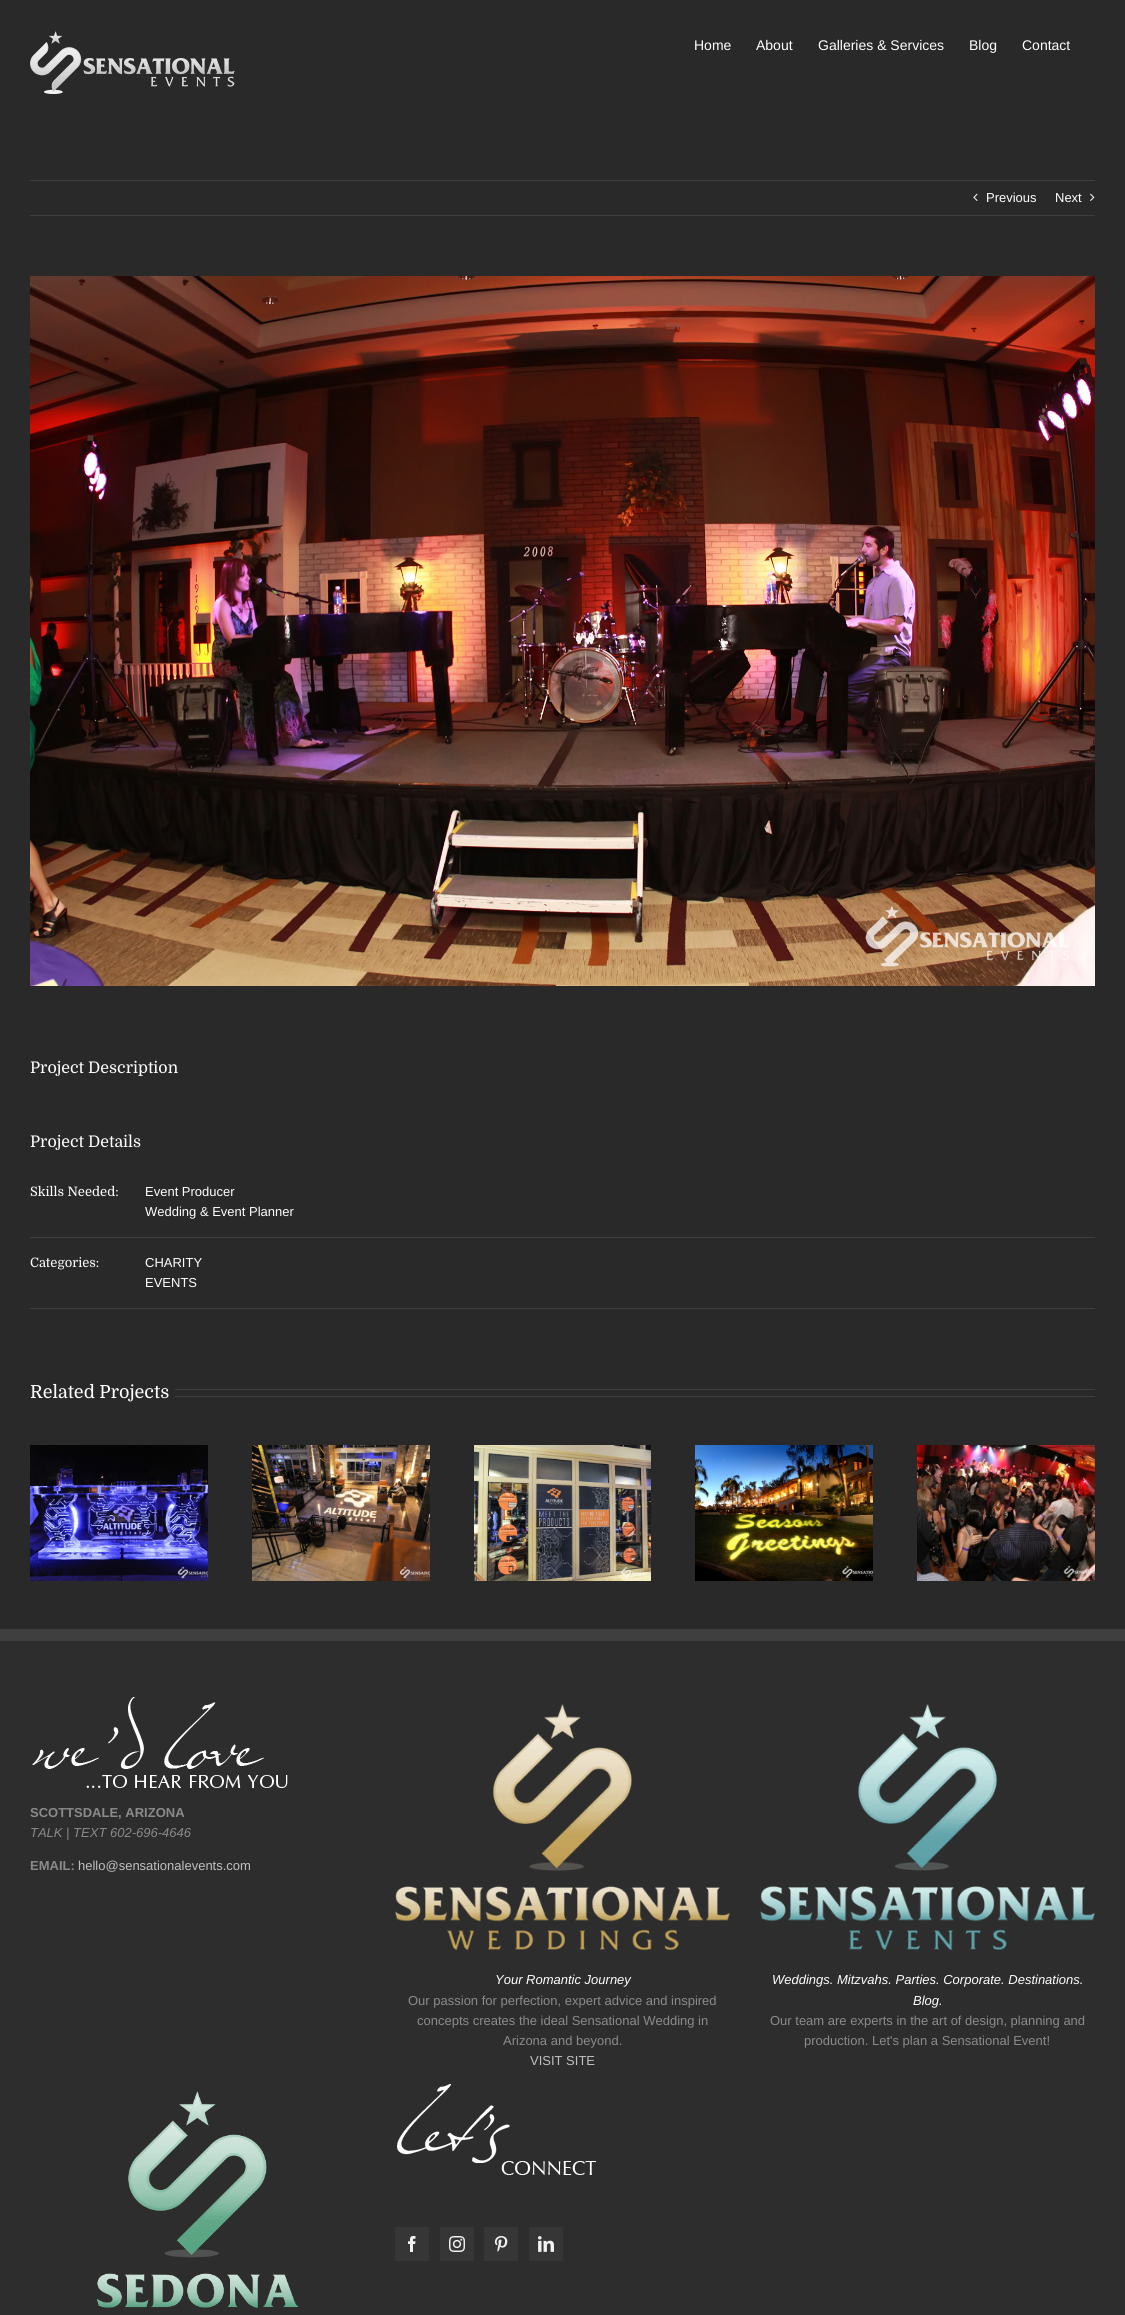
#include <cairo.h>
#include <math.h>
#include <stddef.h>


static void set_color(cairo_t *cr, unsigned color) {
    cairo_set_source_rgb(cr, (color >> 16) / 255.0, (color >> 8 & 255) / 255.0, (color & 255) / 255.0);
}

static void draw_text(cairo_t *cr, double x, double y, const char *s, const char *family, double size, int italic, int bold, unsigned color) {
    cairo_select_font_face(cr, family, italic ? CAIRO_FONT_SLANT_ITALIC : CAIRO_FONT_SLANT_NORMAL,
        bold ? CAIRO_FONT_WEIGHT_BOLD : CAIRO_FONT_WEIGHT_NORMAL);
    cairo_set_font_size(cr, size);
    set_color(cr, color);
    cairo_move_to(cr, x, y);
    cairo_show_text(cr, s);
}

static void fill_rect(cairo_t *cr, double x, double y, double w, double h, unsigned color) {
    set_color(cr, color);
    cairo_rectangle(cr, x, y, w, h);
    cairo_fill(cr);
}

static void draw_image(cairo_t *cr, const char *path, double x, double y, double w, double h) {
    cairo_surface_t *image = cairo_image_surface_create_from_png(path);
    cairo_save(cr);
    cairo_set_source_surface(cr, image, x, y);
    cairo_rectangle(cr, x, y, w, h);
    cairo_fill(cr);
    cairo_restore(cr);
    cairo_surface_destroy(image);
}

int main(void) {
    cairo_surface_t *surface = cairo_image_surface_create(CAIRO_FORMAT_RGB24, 1125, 2315);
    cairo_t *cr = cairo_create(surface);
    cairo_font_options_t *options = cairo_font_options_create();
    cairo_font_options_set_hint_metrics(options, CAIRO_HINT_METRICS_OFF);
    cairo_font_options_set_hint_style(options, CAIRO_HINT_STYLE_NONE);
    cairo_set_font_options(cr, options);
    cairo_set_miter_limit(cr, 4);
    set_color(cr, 0x29292A);
    cairo_paint(cr);
    draw_image(cr, "assets/img1.png", 30, 31, 205, 63);
    draw_text(cr, 694, 50, "Home", "Liberation Sans", 14, 0, 0, 0xFFFFFF);
    draw_text(cr, 756, 50, "About", "Liberation Sans", 14, 0, 0, 0xFFFFFF);
    draw_text(cr, 818, 50, "Galleries & Services", "Liberation Sans", 14, 0, 0, 0xFFFFFF);
    draw_text(cr, 969, 50, "Blog", "Liberation Sans", 14, 0, 0, 0xFFFFFF);
    draw_text(cr, 1022, 50, "Contact", "Liberation Sans", 14, 0, 0, 0xFFFFFF);
    fill_rect(cr, 30, 180, 1065, 1, 0x3E3E3E);
    fill_rect(cr, 30, 215, 1065, 1, 0x3E3E3E);
    draw_image(cr, "assets/img2.png", 973, 193, 5, 8);
    draw_text(cr, 986, 202, "Previous", "Liberation Sans", 13, 0, 0, 0xFFFFFF);
    draw_text(cr, 1055, 202, "Next", "Liberation Sans", 13, 0, 0, 0xFFFFFF);
    draw_image(cr, "assets/img3.png", 1090, 193, 5, 8);
    draw_image(cr, "assets/img4.png", 30, 276, 1065, 710);
    draw_text(cr, 30, 1073, "Project Description", "Domine", 16, 0, 0, 0xFFFFFF);
    draw_text(cr, 30, 1147, "Project Details", "Domine", 16, 0, 0, 0xFFFFFF);
    fill_rect(cr, 30, 1237, 1065, 1, 0x3E3E3E);
    draw_text(cr, 30, 1196, "Skills Needed:", "Domine", 13, 0, 0, 0xFFFFFF);
    draw_text(cr, 145, 1196, "Event Producer", "Liberation Sans", 13, 0, 0, 0xFFFFFF);
    draw_text(cr, 145, 1216, "Wedding & Event Planner", "Liberation Sans", 13, 0, 0, 0xFFFFFF);
    fill_rect(cr, 30, 1308, 1065, 1, 0x3E3E3E);
    draw_text(cr, 30, 1267, "Categories:", "Domine", 13, 0, 0, 0xFFFFFF);
    draw_text(cr, 145, 1267, "CHARITY", "Liberation Sans", 13, 0, 0, 0xFFFFFF);
    draw_text(cr, 145, 1287, "EVENTS", "Liberation Sans", 13, 0, 0, 0xFFFFFF);
    draw_text(cr, 30, 1398, "Related Projects", "Domine", 18, 0, 0, 0xFFFFFF);
    fill_rect(cr, 175, 1389, 920, 1, 0x3E3E3E);
    fill_rect(cr, 175, 1396, 920, 1, 0x3E3E3E);
    draw_image(cr, "assets/img5.png", 30, 1445, 178, 136);
    draw_image(cr, "assets/img6.png", 252, 1445, 178, 136);
    draw_image(cr, "assets/img7.png", 474, 1445, 177, 136);
    draw_image(cr, "assets/img8.png", 695, 1445, 178, 136);
    draw_image(cr, "assets/img9.png", 917, 1445, 178, 136);
    fill_rect(cr, 0, 1641, 1125, 674, 0x2D2D2D);
    fill_rect(cr, 0, 1629, 1125, 12, 0x403F3F);
    draw_image(cr, "assets/img10.png", 32, 1697, 256, 91);
    draw_text(cr, 30, 1817, "SCOTTSDALE, ARIZONA", "Liberation Sans", 13, 0, 1, 0x8C8989);
    draw_text(cr, 30, 1837, "TALK | TEXT 602-696-4646", "Liberation Sans", 13, 1, 0, 0x8C8989);
    draw_text(cr, 30, 1870, "EMAIL:", "Liberation Sans", 13, 0, 1, 0x8C8989);
    draw_text(cr, 78, 1870, "hello@sensationalevents.com", "Liberation Sans", 13, 0, 0, 0xBFBFBF);
    draw_image(cr, "assets/img11.png", 395, 1704, 335, 247);
    draw_text(cr, 495, 1984, "Your Romantic Journey", "Liberation Sans", 13, 1, 0, 0xFFFFFF);
    draw_text(cr, 408, 2005, "Our passion for perfection, expert advice and inspired", "Liberation Sans", 13, 0, 0, 0x8C8989);
    draw_text(cr, 417, 2025, "concepts creates the ideal Sensational Wedding in", "Liberation Sans", 13, 0, 0, 0x8C8989);
    draw_text(cr, 503, 2045, "Arizona and beyond.", "Liberation Sans", 13, 0, 0, 0x8C8989);
    draw_text(cr, 530, 2065, "VISIT SITE", "Liberation Sans", 13, 0, 0, 0xBFBFBF);
    draw_image(cr, "assets/img12.png", 760, 1704, 335, 247);
    draw_text(cr, 772, 1984, "Weddings. Mitzvahs. Parties. Corporate. Destinations.", "Liberation Sans", 13, 1, 0, 0xFFFFFF);
    draw_text(cr, 913, 2005, "Blog.", "Liberation Sans", 13, 1, 0, 0xFFFFFF);
    draw_text(cr, 770, 2025, "Our team are experts in the art of design, planning and", "Liberation Sans", 13, 0, 0, 0x8C8989);
    draw_text(cr, 804, 2045, "production. Let's plan a Sensational Event!", "Liberation Sans", 13, 0, 0, 0x8C8989);
    draw_image(cr, "assets/img13.png", 97, 2091, 202, 217);
    draw_image(cr, "assets/img14.png", 397, 2084, 199, 91);
    fill_rect(cr, 395, 2227, 34, 34, 0x363636);
    draw_image(cr, "assets/img15.png", 408, 2236, 8, 16);
    fill_rect(cr, 440, 2227, 34, 34, 0x363636);
    draw_image(cr, "assets/img16.png", 449, 2236, 16, 16);
    fill_rect(cr, 484, 2227, 34, 34, 0x363636);
    draw_image(cr, "assets/img17.png", 494, 2236, 14, 16);
    fill_rect(cr, 529, 2227, 34, 34, 0x363636);
    draw_image(cr, "assets/img18.png", 538, 2236, 16, 16);
    cairo_surface_write_to_png(surface, "output.png");
    cairo_font_options_destroy(options);
    cairo_destroy(cr);
    cairo_surface_destroy(surface);
    return 0;
}
